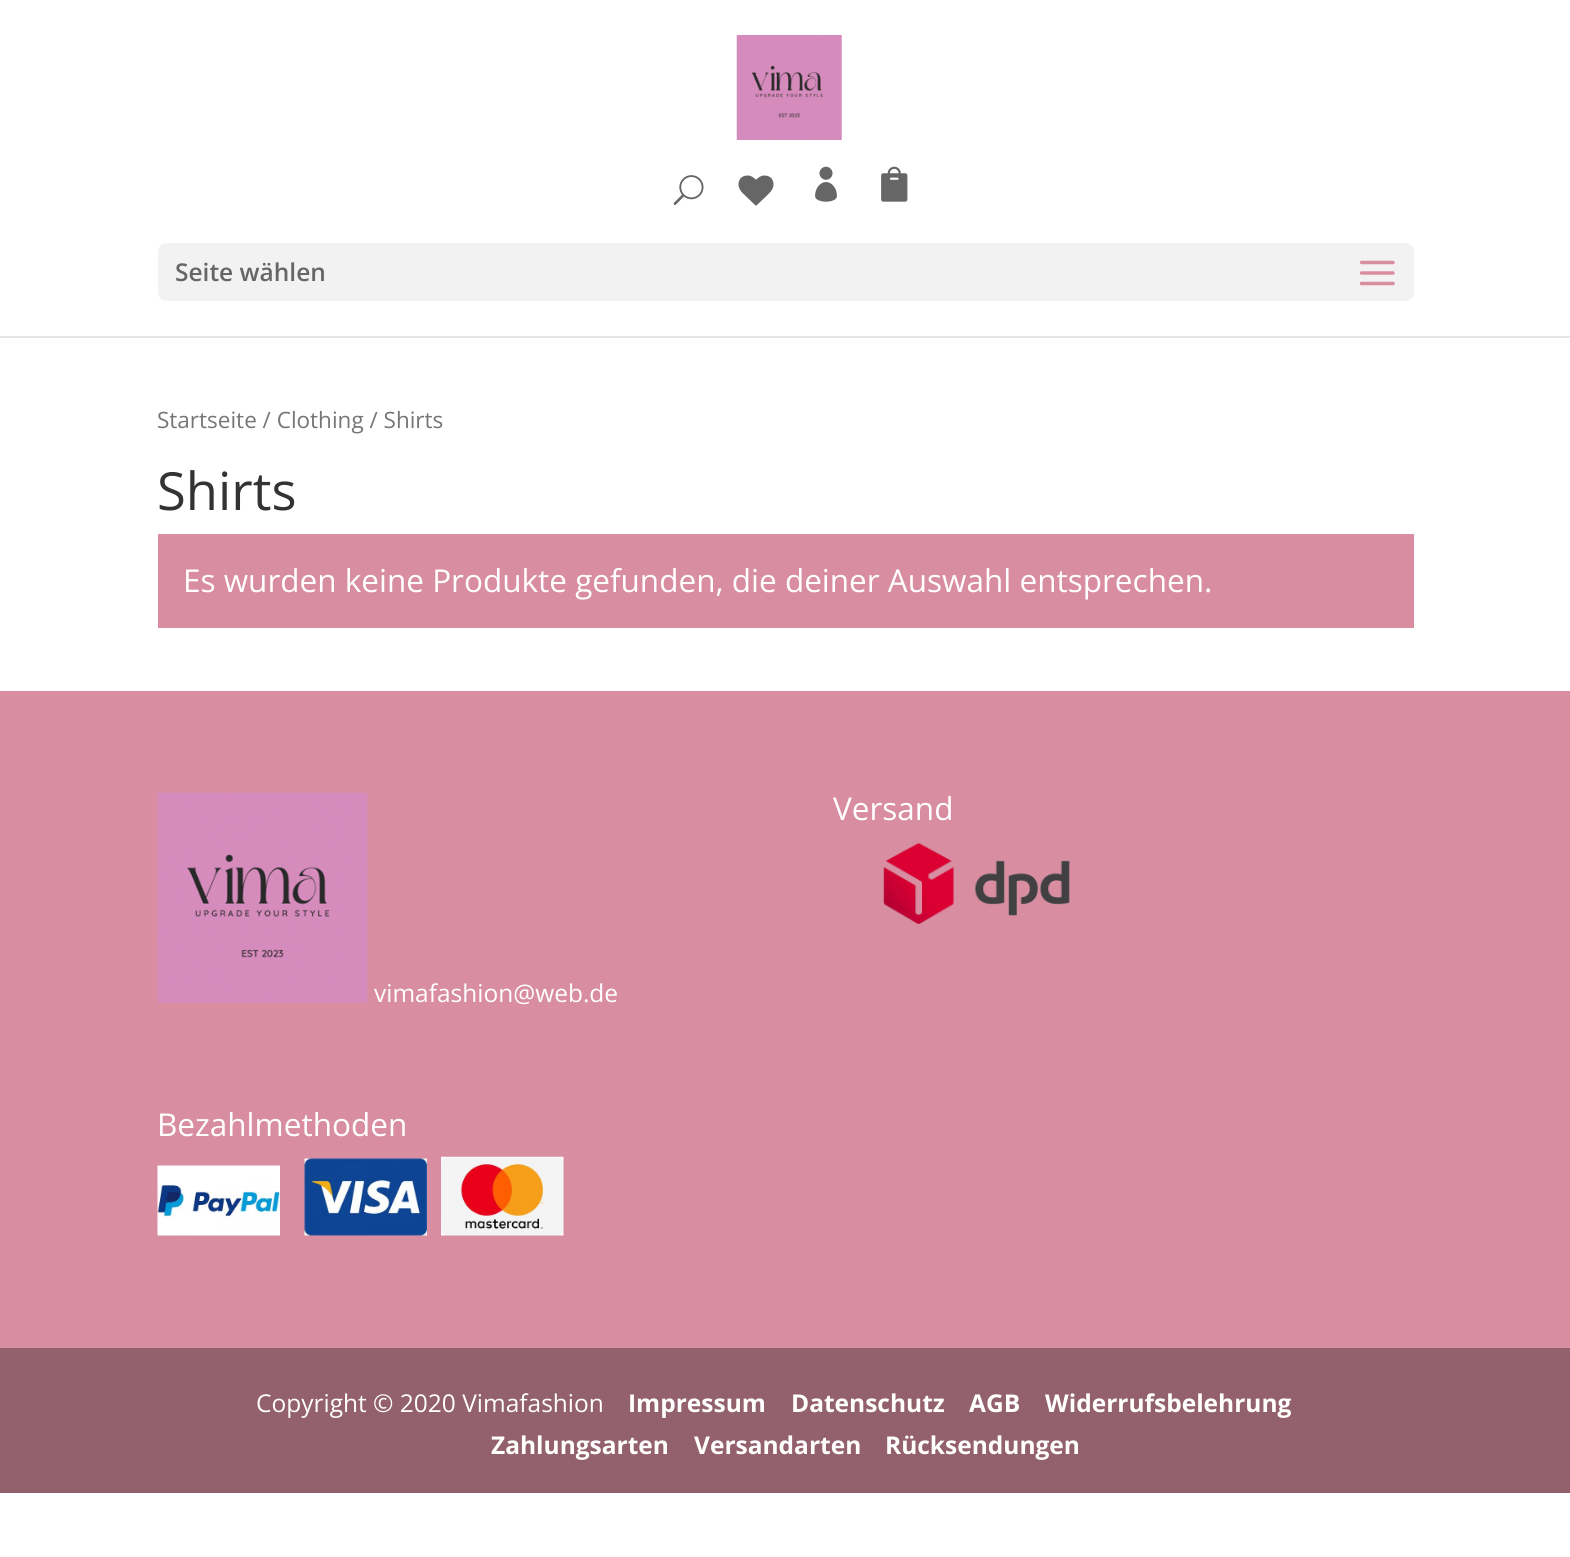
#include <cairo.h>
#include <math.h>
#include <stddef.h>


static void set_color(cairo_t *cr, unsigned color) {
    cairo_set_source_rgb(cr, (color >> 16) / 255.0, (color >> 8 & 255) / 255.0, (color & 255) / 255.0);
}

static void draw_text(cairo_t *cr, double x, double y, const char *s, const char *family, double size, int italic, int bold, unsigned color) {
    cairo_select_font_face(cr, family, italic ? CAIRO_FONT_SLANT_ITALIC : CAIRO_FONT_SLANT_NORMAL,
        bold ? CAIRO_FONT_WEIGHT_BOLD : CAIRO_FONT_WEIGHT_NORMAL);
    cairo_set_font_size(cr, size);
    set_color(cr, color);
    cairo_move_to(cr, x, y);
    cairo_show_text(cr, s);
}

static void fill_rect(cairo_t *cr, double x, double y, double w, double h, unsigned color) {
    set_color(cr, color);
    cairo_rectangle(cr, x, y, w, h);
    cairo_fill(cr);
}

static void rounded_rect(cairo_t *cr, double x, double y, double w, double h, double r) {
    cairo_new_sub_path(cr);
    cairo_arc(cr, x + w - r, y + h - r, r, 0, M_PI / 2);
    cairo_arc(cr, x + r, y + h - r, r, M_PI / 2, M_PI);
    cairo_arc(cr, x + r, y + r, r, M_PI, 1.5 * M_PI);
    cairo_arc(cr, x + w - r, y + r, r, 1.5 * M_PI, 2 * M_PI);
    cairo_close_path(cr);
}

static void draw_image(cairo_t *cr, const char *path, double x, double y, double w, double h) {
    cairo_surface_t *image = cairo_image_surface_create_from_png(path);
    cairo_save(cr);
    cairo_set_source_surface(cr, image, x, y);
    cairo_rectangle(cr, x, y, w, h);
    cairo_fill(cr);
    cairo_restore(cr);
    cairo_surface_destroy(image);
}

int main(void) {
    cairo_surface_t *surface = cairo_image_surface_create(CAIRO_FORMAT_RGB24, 1570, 1557);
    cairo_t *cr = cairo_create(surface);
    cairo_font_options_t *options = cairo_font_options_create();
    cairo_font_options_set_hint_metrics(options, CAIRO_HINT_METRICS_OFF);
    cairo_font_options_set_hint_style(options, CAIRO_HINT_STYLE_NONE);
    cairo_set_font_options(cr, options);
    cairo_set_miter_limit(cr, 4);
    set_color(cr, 0xFFFFFF);
    cairo_paint(cr);
    set_color(cr, 0xE6E6E6);
    cairo_new_path(cr);
    cairo_move_to(cr, 0, 336);
    cairo_line_to(cr, 0, 338);
    cairo_line_to(cr, 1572, 338);
    cairo_line_to(cr, 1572, 2);
    cairo_line_to(cr, 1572, 336);
    cairo_close_path(cr);
    cairo_fill(cr);
    draw_image(cr, "assets/img1.png", 736, 35, 106, 105);
    draw_image(cr, "assets/img2.png", 673, 175, 31, 30);
    draw_image(cr, "assets/img3.png", 738, 175, 36, 31);
    draw_image(cr, "assets/img4.png", 815, 166, 22, 36);
    draw_image(cr, "assets/img5.png", 881, 166, 27, 36);
    set_color(cr, 0xF2F2F2);
    rounded_rect(cr, 158, 243, 1256, 58, 9);
    cairo_fill(cr);
    draw_text(cr, 175, 281, "Seite wählen", "Open Sans SemiBold", 24.5, 0, 0, 0x666666);
    draw_image(cr, "assets/img6.png", 1359, 260, 36, 26);
    draw_text(cr, 157, 428, "Startseite / Clothing / Shirts", "Open Sans", 22.5, 0, 0, 0x767676);
    draw_text(cr, 157, 510, "Shirts", "Open Sans", 52.5, 0, 0, 0x333333);
    fill_rect(cr, 158, 534, 1256, 94, 0xD88DA1);
    draw_text(cr, 183, 592, "Es wurden keine Produkte gefunden, die deiner Auswahl entsprechen.", "Open Sans", 31.5, 0, 0, 0xFFFFFF);
    fill_rect(cr, 0, 691, 1570, 657, 0xD88DA1);
    draw_text(cr, 833, 820, "Versand", "Open Sans", 31.5, 0, 0, 0xFFFFFF);
    draw_image(cr, "assets/img7.png", 883, 842, 187, 82);
    draw_image(cr, "assets/img8.png", 157, 792, 211, 211);
    draw_text(cr, 374, 1002, "vimafashion@web.de", "Open Sans", 24.5, 0, 0, 0xFFFFFF);
    draw_text(cr, 157, 1136, "Bezahlmethoden", "Open Sans", 31.5, 0, 0, 0xFFFFFF);
    draw_image(cr, "assets/img9.png", 157, 1165, 123, 71);
    draw_image(cr, "assets/img10.png", 304, 1158, 123, 78);
    draw_image(cr, "assets/img11.png", 441, 1156, 123, 80);
    fill_rect(cr, 0, 1348, 1570, 145, 0x93606D);
    draw_text(cr, 256, 1412, "Copyright © 2020 Vimafashion", "Open Sans", 24.5, 0, 0, 0xFFFFFF);
    draw_text(cr, 628, 1412, "Impressum", "Open Sans", 24.5, 0, 1, 0xFFFFFF);
    draw_text(cr, 791, 1412, "Datenschutz", "Open Sans", 24.5, 0, 1, 0xFFFFFF);
    draw_text(cr, 969, 1412, "AGB", "Open Sans", 24.5, 0, 1, 0xFFFFFF);
    draw_text(cr, 1045, 1412, "Widerrufsbelehrung", "Open Sans", 24.5, 0, 1, 0xFFFFFF);
    draw_text(cr, 491, 1454, "Zahlungsarten", "Open Sans", 24.5, 0, 1, 0xFFFFFF);
    draw_text(cr, 694, 1454, "Versandarten", "Open Sans", 24.5, 0, 1, 0xFFFFFF);
    draw_text(cr, 885, 1454, "Rücksendungen", "Open Sans", 24.5, 0, 1, 0xFFFFFF);
    cairo_surface_write_to_png(surface, "output.png");
    cairo_font_options_destroy(options);
    cairo_destroy(cr);
    cairo_surface_destroy(surface);
    return 0;
}
